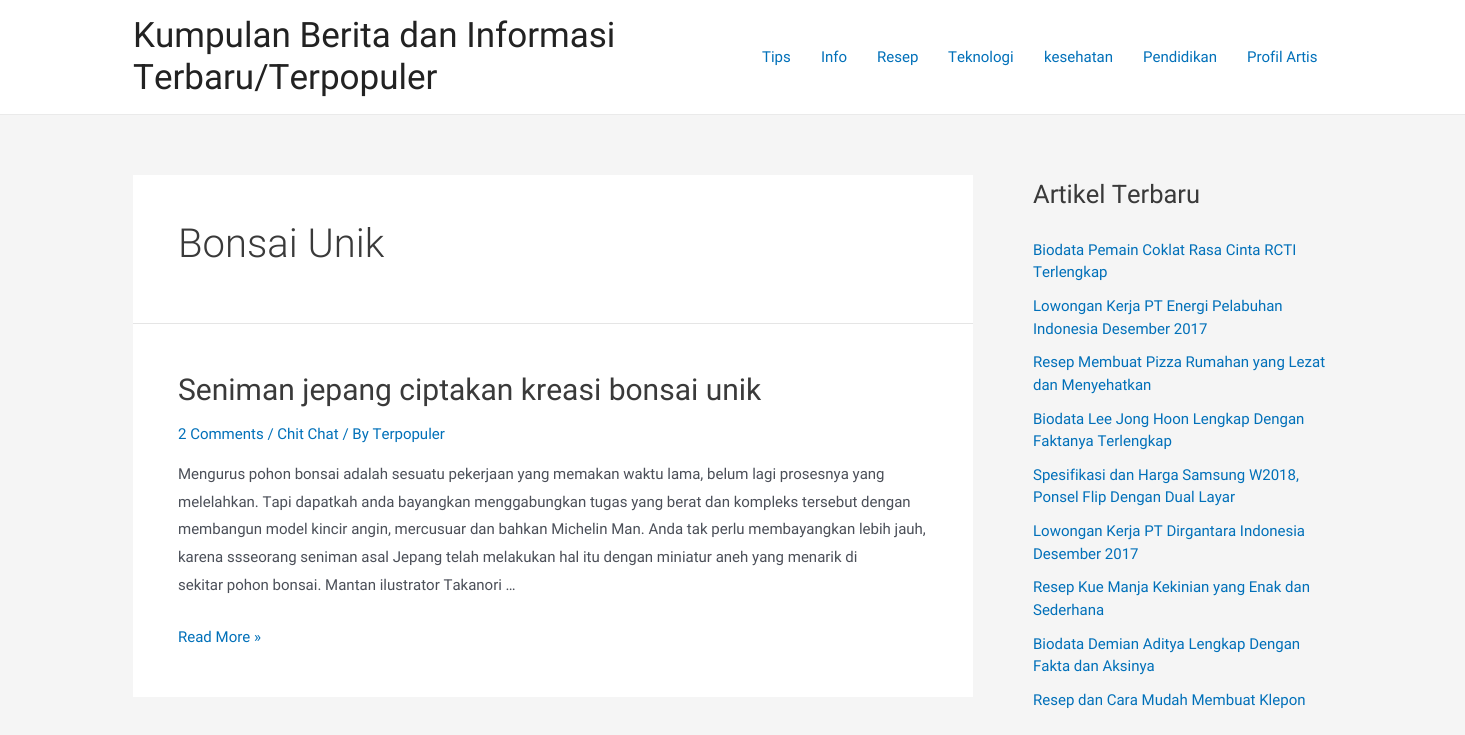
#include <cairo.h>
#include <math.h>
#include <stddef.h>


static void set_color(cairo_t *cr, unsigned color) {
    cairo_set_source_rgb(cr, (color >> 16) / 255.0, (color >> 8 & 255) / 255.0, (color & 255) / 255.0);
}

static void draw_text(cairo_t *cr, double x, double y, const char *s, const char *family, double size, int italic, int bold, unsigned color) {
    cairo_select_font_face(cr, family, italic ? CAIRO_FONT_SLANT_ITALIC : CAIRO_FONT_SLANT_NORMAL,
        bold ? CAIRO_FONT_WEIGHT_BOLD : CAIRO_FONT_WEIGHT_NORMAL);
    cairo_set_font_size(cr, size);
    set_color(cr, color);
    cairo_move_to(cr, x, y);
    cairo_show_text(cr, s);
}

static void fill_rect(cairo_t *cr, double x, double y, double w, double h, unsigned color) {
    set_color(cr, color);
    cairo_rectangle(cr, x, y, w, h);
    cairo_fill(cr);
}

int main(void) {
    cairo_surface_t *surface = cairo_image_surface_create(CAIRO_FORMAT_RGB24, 1465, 735);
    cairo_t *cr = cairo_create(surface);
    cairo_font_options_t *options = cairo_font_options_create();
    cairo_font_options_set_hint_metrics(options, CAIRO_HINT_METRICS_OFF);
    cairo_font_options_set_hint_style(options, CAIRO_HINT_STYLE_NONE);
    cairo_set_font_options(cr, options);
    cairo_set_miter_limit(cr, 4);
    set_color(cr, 0xF5F5F5);
    cairo_paint(cr);
    fill_rect(cr, 0, 0, 1465, 114, 0xFFFFFF);
    fill_rect(cr, 0, 114, 1465, 1, 0xEAEAEA);
    draw_text(cr, 133, 47, "Kumpulan Berita dan Informasi", "Roboto", 35, 0, 0, 0x222222);
    draw_text(cr, 133, 89, "Terbaru/Terpopuler", "Roboto", 35, 0, 0, 0x222222);
    draw_text(cr, 762, 62, "Tips", "Roboto", 15, 0, 0, 0x0170B9);
    draw_text(cr, 821, 62, "Info", "Roboto", 15, 0, 0, 0x0170B9);
    draw_text(cr, 877, 62, "Resep", "Roboto", 15, 0, 0, 0x0170B9);
    draw_text(cr, 948, 62, "Teknologi", "Roboto", 15, 0, 0, 0x0170B9);
    draw_text(cr, 1044, 62, "kesehatan", "Roboto", 15, 0, 0, 0x0170B9);
    draw_text(cr, 1143, 62, "Pendidikan", "Roboto", 15, 0, 0, 0x0170B9);
    draw_text(cr, 1247, 62, "Profil Artis", "Roboto", 15, 0, 0, 0x0170B9);
    fill_rect(cr, 133, 175, 840, 148, 0xFFFFFF);
    fill_rect(cr, 133, 323, 840, 1, 0xE5E5E5);
    draw_text(cr, 178, 257, "Bonsai Unik", "Roboto Light", 40, 0, 0, 0x3A3A3A);
    fill_rect(cr, 133, 324, 840, 373, 0xFFFFFF);
    draw_text(cr, 178, 400, "Seniman jepang ciptakan kreasi bonsai unik", "Roboto", 30, 0, 0, 0x3A3A3A);
    draw_text(cr, 178, 439, "2 Comments / Chit Chat / By Terpopuler", "Roboto", 15, 0, 0, 0x0170B9);
    draw_text(cr, 178, 479, "Mengurus pohon bonsai adalah sesuatu pekerjaan yang memakan waktu lama, belum lagi prosesnya yang", "Roboto", 15, 0, 0, 0x4B4F58);
    draw_text(cr, 178, 507, "melelahkan. Tapi dapatkah anda bayangkan menggabungkan tugas yang berat dan kompleks tersebut dengan", "Roboto", 15, 0, 0, 0x4B4F58);
    draw_text(cr, 178, 534, "membangun model kincir angin, mercusuar dan bahkan Michelin Man. Anda tak perlu membayangkan lebih jauh,", "Roboto", 15, 0, 0, 0x4B4F58);
    draw_text(cr, 178, 562, "karena ssseorang seniman asal Jepang telah melakukan hal itu dengan miniatur aneh yang menarik di", "Roboto", 15, 0, 0, 0x4B4F58);
    draw_text(cr, 178, 590, "sekitar pohon bonsai. Mantan ilustrator Takanori …", "Roboto", 15, 0, 0, 0x4B4F58);
    draw_text(cr, 178, 642, "Read More »", "Roboto", 15, 0, 0, 0x0170B9);
    draw_text(cr, 1033, 203, "Artikel Terbaru", "Roboto", 25.5, 0, 0, 0x3A3A3A);
    draw_text(cr, 1033, 255, "Biodata Pemain Coklat Rasa Cinta RCTI", "Roboto", 15, 0, 0, 0x0170B9);
    draw_text(cr, 1033, 277, "Terlengkap", "Roboto", 15, 0, 0, 0x0170B9);
    draw_text(cr, 1033, 311, "Lowongan Kerja PT Energi Pelabuhan", "Roboto", 15, 0, 0, 0x0170B9);
    draw_text(cr, 1033, 334, "Indonesia Desember 2017", "Roboto", 15, 0, 0, 0x0170B9);
    draw_text(cr, 1033, 367, "Resep Membuat Pizza Rumahan yang Lezat", "Roboto", 15, 0, 0, 0x0170B9);
    draw_text(cr, 1033, 390, "dan Menyehatkan", "Roboto", 15, 0, 0, 0x0170B9);
    draw_text(cr, 1033, 424, "Biodata Lee Jong Hoon Lengkap Dengan", "Roboto", 15, 0, 0, 0x0170B9);
    draw_text(cr, 1033, 446, "Faktanya Terlengkap", "Roboto", 15, 0, 0, 0x0170B9);
    draw_text(cr, 1033, 480, "Spesifikasi dan Harga Samsung W2018,", "Roboto", 15, 0, 0, 0x0170B9);
    draw_text(cr, 1033, 502, "Ponsel Flip Dengan Dual Layar", "Roboto", 15, 0, 0, 0x0170B9);
    draw_text(cr, 1033, 536, "Lowongan Kerja PT Dirgantara Indonesia", "Roboto", 15, 0, 0, 0x0170B9);
    draw_text(cr, 1033, 559, "Desember 2017", "Roboto", 15, 0, 0, 0x0170B9);
    draw_text(cr, 1033, 592, "Resep Kue Manja Kekinian yang Enak dan", "Roboto", 15, 0, 0, 0x0170B9);
    draw_text(cr, 1033, 615, "Sederhana", "Roboto", 15, 0, 0, 0x0170B9);
    draw_text(cr, 1033, 649, "Biodata Demian Aditya Lengkap Dengan", "Roboto", 15, 0, 0, 0x0170B9);
    draw_text(cr, 1033, 671, "Fakta dan Aksinya", "Roboto", 15, 0, 0, 0x0170B9);
    draw_text(cr, 1033, 705, "Resep dan Cara Mudah Membuat Klepon", "Roboto", 15, 0, 0, 0x0170B9);
    cairo_surface_write_to_png(surface, "output.png");
    cairo_font_options_destroy(options);
    cairo_destroy(cr);
    cairo_surface_destroy(surface);
    return 0;
}
